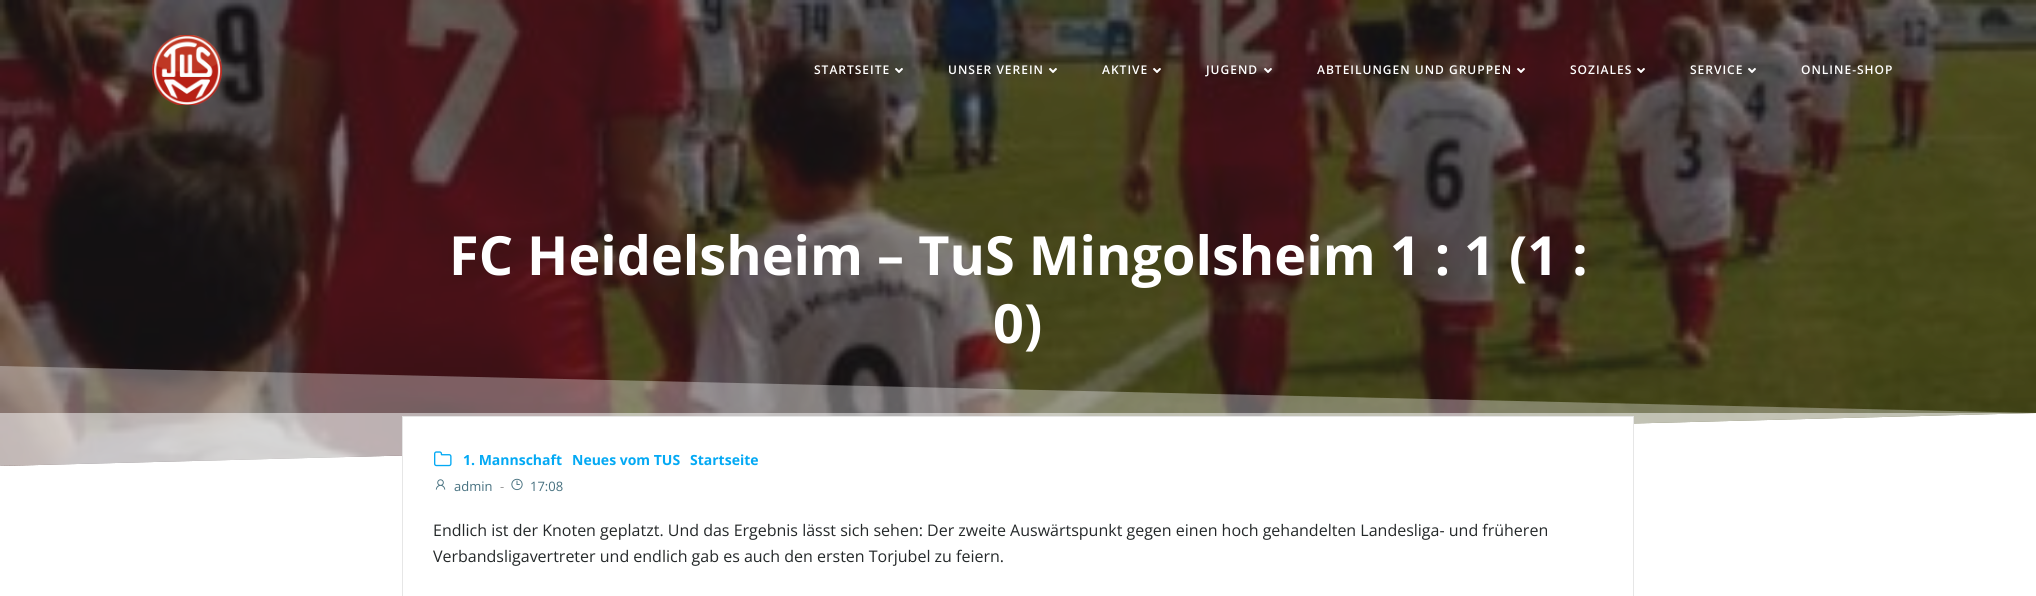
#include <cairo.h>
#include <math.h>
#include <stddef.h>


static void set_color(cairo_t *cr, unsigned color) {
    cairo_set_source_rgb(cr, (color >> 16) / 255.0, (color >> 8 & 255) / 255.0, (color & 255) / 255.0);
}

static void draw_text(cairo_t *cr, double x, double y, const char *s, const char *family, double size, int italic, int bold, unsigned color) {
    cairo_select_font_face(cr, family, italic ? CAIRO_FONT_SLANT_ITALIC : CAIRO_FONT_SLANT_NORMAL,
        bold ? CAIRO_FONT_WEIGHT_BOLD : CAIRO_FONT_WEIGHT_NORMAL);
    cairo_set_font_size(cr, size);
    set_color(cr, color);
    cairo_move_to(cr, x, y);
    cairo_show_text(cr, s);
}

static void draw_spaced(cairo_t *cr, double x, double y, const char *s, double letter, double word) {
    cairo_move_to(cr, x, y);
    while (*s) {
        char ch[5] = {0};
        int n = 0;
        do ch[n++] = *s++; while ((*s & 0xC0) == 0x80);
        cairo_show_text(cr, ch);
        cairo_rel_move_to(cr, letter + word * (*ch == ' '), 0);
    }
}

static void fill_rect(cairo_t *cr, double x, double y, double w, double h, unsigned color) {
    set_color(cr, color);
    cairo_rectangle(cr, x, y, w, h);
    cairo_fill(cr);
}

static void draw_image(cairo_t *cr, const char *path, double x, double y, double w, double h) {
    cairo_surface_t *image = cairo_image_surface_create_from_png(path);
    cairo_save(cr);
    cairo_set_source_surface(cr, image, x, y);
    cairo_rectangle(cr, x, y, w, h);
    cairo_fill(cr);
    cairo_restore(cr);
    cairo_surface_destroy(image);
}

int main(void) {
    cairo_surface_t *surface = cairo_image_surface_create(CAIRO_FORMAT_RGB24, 2036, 596);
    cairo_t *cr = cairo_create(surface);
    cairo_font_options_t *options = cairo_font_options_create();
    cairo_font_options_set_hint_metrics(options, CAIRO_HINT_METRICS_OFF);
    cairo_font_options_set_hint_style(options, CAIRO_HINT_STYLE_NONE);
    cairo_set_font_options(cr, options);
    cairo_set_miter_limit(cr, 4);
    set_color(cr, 0xFFFFFF);
    cairo_paint(cr);
    draw_image(cr, "assets/img9.png", 0, 0, 2036, 466);
    cairo_set_source_rgba(cr, 0.118, 0.122, 0.133, 0.55);
    cairo_rectangle(cr, 0, 0, 2036, 466);
    cairo_fill(cr);
    draw_image(cr, "assets/img1.png", 152, 35, 70, 70);
    cairo_select_font_face(cr, "Open Sans SemiBold", CAIRO_FONT_SLANT_NORMAL, CAIRO_FONT_WEIGHT_NORMAL);
    cairo_set_font_size(cr, 12);
    set_color(cr, 0xFFFFFF);
    draw_spaced(cr, 814, 74, "STARTSEITE", 1, 0);
    draw_image(cr, "assets/img2.png", 895, 68, 8, 5);
    draw_spaced(cr, 948, 74, "UNSER VEREIN", 1, 0);
    draw_image(cr, "assets/img3.png", 1049, 68, 8, 5);
    draw_spaced(cr, 1102, 74, "AKTIVE", 1, 0);
    draw_image(cr, "assets/img4.png", 1153, 68, 8, 5);
    draw_spaced(cr, 1206, 74, "JUGEND", 1, 0);
    draw_image(cr, "assets/img5.png", 1264, 68, 8, 5);
    draw_spaced(cr, 1317, 74, "ABTEILUNGEN UND GRUPPEN", 1, 0);
    draw_image(cr, "assets/img6.png", 1517, 68, 8, 5);
    draw_spaced(cr, 1570, 74, "SOZIALES", 1, 0);
    draw_image(cr, "assets/img7.png", 1637, 68, 8, 5);
    draw_spaced(cr, 1690, 74, "SERVICE", 1, 0);
    draw_image(cr, "assets/img8.png", 1748, 68, 8, 5);
    draw_spaced(cr, 1801, 74, "ONLINE-SHOP", 1, 0);
    draw_text(cr, 449, 275, "FC Heidelsheim – TuS Mingolsheim 1 : 1 (1 :", "Open Sans", 54, 0, 1, 0xFFFFFF);
    draw_text(cr, 993, 343, "0)", "Open Sans", 54, 0, 1, 0xFFFFFF);
    cairo_set_source_rgba(cr, 1, 1, 1, 0.33);
    cairo_new_path(cr);
    cairo_move_to(cr, 0, 366);
    cairo_line_to(cr, 2036, 413);
    cairo_line_to(cr, 0, 413);
    cairo_close_path(cr);
    cairo_fill(cr);
    cairo_set_source_rgba(cr, 1, 1, 1, 0.67);
    cairo_new_path(cr);
    cairo_move_to(cr, 0, 413);
    cairo_line_to(cr, 2036, 413);
    cairo_line_to(cr, 0, 466);
    cairo_close_path(cr);
    cairo_fill(cr);
    set_color(cr, 0xFFFFFF);
    cairo_new_path(cr);
    cairo_move_to(cr, 0, 466);
    cairo_line_to(cr, 2036, 413);
    cairo_line_to(cr, 2036, 466);
    cairo_close_path(cr);
    cairo_fill(cr);
    fill_rect(cr, 403, 417, 1230, 39, 0xFFFFFF);
    fill_rect(cr, 402, 416, 1232, 1, 0xE6E6E6);
    fill_rect(cr, 1633, 416, 1, 180, 0xE6E6E6);
    fill_rect(cr, 402, 416, 1, 180, 0xE6E6E6);
    draw_image(cr, "assets/img10.png", 434, 451, 18, 16);
    draw_text(cr, 463, 465, "1. Mannschaft", "Open Sans", 14, 0, 1, 0x03A9F4);
    draw_text(cr, 572, 465, "Neues vom TUS", "Open Sans", 14, 0, 1, 0x03A9F4);
    draw_text(cr, 690, 465, "Startseite", "Open Sans", 14, 0, 1, 0x03A9F4);
    draw_image(cr, "assets/img11.png", 435, 479, 11, 11);
    draw_text(cr, 454, 491, "admin", "Open Sans", 13, 0, 0, 0x46707F);
    draw_text(cr, 500, 491, "-", "Open Sans", 13, 0, 0, 0x999999);
    draw_image(cr, "assets/img12.png", 511, 478, 12, 13);
    draw_text(cr, 530, 491, "17:08", "Open Sans", 13, 0, 0, 0x46707F);
    draw_text(cr, 433, 536, "Endlich ist der Knoten geplatzt. Und das Ergebnis lässt sich sehen: Der zweite Auswärtspunkt gegen einen hoch gehandelten Landesliga- und früheren", "Open Sans", 16, 0, 0, 0x25292A);
    draw_text(cr, 433, 562, "Verbandsligavertreter und endlich gab es auch den ersten Torjubel zu feiern.", "Open Sans", 16, 0, 0, 0x25292A);
    cairo_surface_write_to_png(surface, "output.png");
    cairo_font_options_destroy(options);
    cairo_destroy(cr);
    cairo_surface_destroy(surface);
    return 0;
}
